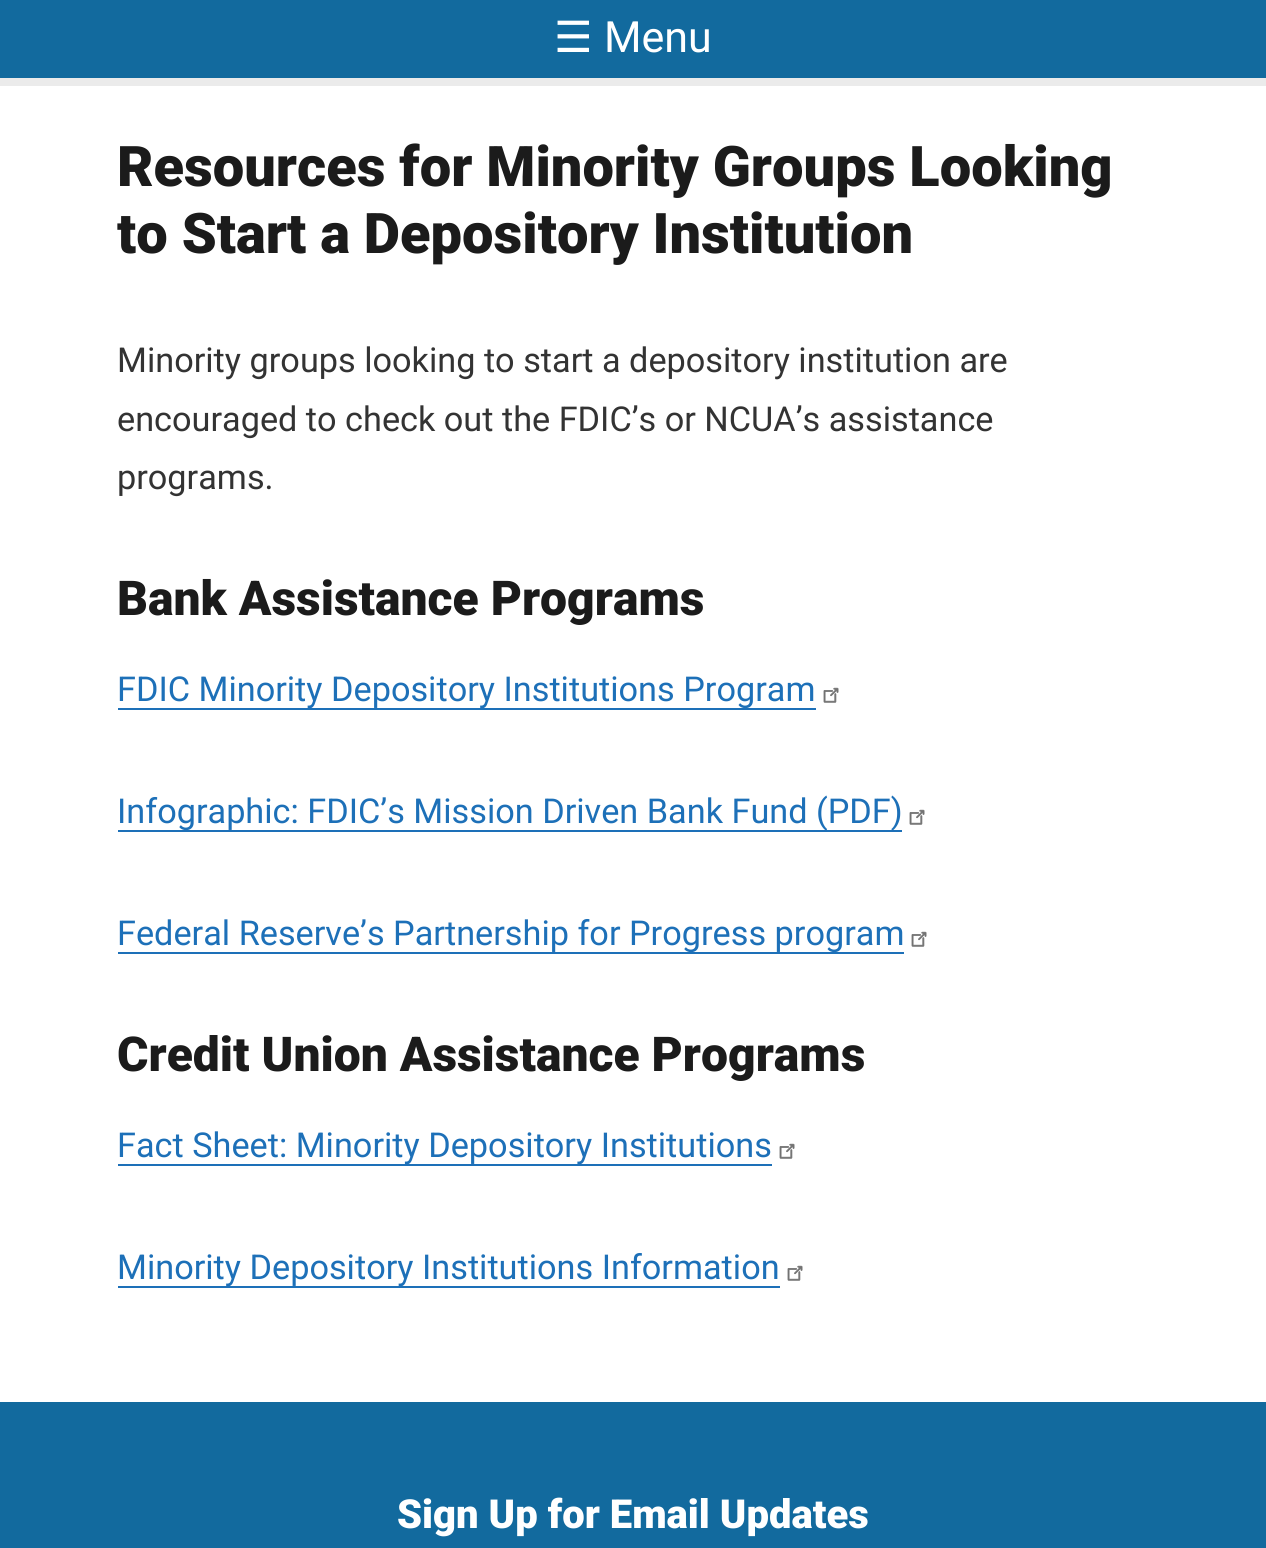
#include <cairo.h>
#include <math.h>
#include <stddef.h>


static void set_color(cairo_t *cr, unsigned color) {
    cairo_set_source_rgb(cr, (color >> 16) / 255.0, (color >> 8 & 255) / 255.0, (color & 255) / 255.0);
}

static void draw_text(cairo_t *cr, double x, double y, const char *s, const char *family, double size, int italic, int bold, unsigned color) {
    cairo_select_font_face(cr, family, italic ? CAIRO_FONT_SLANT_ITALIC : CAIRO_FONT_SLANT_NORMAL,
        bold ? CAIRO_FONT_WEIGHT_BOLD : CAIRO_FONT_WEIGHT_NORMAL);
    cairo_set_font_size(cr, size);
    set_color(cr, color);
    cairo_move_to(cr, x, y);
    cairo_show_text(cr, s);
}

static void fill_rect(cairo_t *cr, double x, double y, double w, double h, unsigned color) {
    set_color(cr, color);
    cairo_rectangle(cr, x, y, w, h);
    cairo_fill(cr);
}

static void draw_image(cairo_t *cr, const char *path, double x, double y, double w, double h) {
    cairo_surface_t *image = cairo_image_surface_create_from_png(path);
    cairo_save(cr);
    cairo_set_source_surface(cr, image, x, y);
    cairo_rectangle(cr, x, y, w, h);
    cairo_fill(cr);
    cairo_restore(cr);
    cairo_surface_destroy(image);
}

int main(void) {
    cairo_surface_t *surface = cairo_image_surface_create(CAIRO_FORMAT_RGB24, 1266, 1548);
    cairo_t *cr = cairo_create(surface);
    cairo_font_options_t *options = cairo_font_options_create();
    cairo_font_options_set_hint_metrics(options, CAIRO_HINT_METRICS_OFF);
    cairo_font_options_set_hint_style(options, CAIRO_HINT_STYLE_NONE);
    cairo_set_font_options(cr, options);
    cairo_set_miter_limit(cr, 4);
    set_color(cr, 0xFFFFFF);
    cairo_paint(cr);
    fill_rect(cr, 0, 0, 1266, 78, 0x126A9E);
    fill_rect(cr, 0, 78, 1266, 8, 0xEBEBEB);
    draw_text(cr, 554, 52, "☰", "DejaVu Sans", 43, 0, 0, 0xFFFFFF);
    draw_text(cr, 604, 52, "Menu", "Roboto", 43, 0, 0, 0xFFFFFF);
    draw_text(cr, 117, 186, "Resources for Minority Groups Looking", "Roboto Black", 56, 0, 0, 0x1B1B1B);
    draw_text(cr, 117, 253, "to Start a Depository Institution", "Roboto Black", 56, 0, 0, 0x1B1B1B);
    draw_text(cr, 117, 372, "Minority groups looking to start a depository institution are", "Roboto", 34.25, 0, 0, 0x333333);
    draw_text(cr, 117, 431, "encouraged to check out the FDIC’s or NCUA’s assistance", "Roboto", 34.25, 0, 0, 0x333333);
    draw_text(cr, 117, 489, "programs.", "Roboto", 34.25, 0, 0, 0x333333);
    draw_text(cr, 117, 615, "Bank Assistance Programs", "Roboto Black", 48, 0, 0, 0x1B1B1B);
    fill_rect(cr, 118, 708, 698, 2, 0x1D70B8);
    draw_text(cr, 117, 701, "FDIC Minority Depository Institutions Program", "Roboto", 34.25, 0, 0, 0x1D70B8);
    draw_image(cr, "assets/img1.png", 823, 687, 16, 16);
    fill_rect(cr, 118, 830, 784, 2, 0x1D70B8);
    draw_text(cr, 117, 823, "Infographic: FDIC’s Mission Driven Bank Fund", "Roboto", 34.25, 0, 0, 0x1D70B8);
    draw_text(cr, 816, 823, "(PDF)", "Roboto", 34.25, 0, 0, 0x1D70B8);
    draw_image(cr, "assets/img1.png", 909, 809, 16, 16);
    fill_rect(cr, 118, 952, 786, 2, 0x1D70B8);
    draw_text(cr, 117, 945, "Federal Reserve’s Partnership for Progress program", "Roboto", 34.25, 0, 0, 0x1D70B8);
    draw_image(cr, "assets/img1.png", 911, 931, 16, 16);
    draw_text(cr, 117, 1071, "Credit Union Assistance Programs", "Roboto Black", 48, 0, 0, 0x1B1B1B);
    fill_rect(cr, 118, 1164, 654, 2, 0x1D70B8);
    draw_text(cr, 117, 1157, "Fact Sheet: Minority Depository Institutions", "Roboto", 34.25, 0, 0, 0x1D70B8);
    draw_image(cr, "assets/img1.png", 779, 1143, 16, 16);
    fill_rect(cr, 118, 1286, 662, 2, 0x1D70B8);
    draw_text(cr, 117, 1279, "Minority Depository Institutions Information", "Roboto", 34.25, 0, 0, 0x1D70B8);
    draw_image(cr, "assets/img1.png", 787, 1265, 16, 16);
    fill_rect(cr, 0, 1402, 1266, 146, 0x126A9E);
    draw_text(cr, 397, 1528, "Sign Up for Email Updates", "Roboto Black", 40, 0, 0, 0xFFFFFF);
    cairo_surface_write_to_png(surface, "output.png");
    cairo_font_options_destroy(options);
    cairo_destroy(cr);
    cairo_surface_destroy(surface);
    return 0;
}
